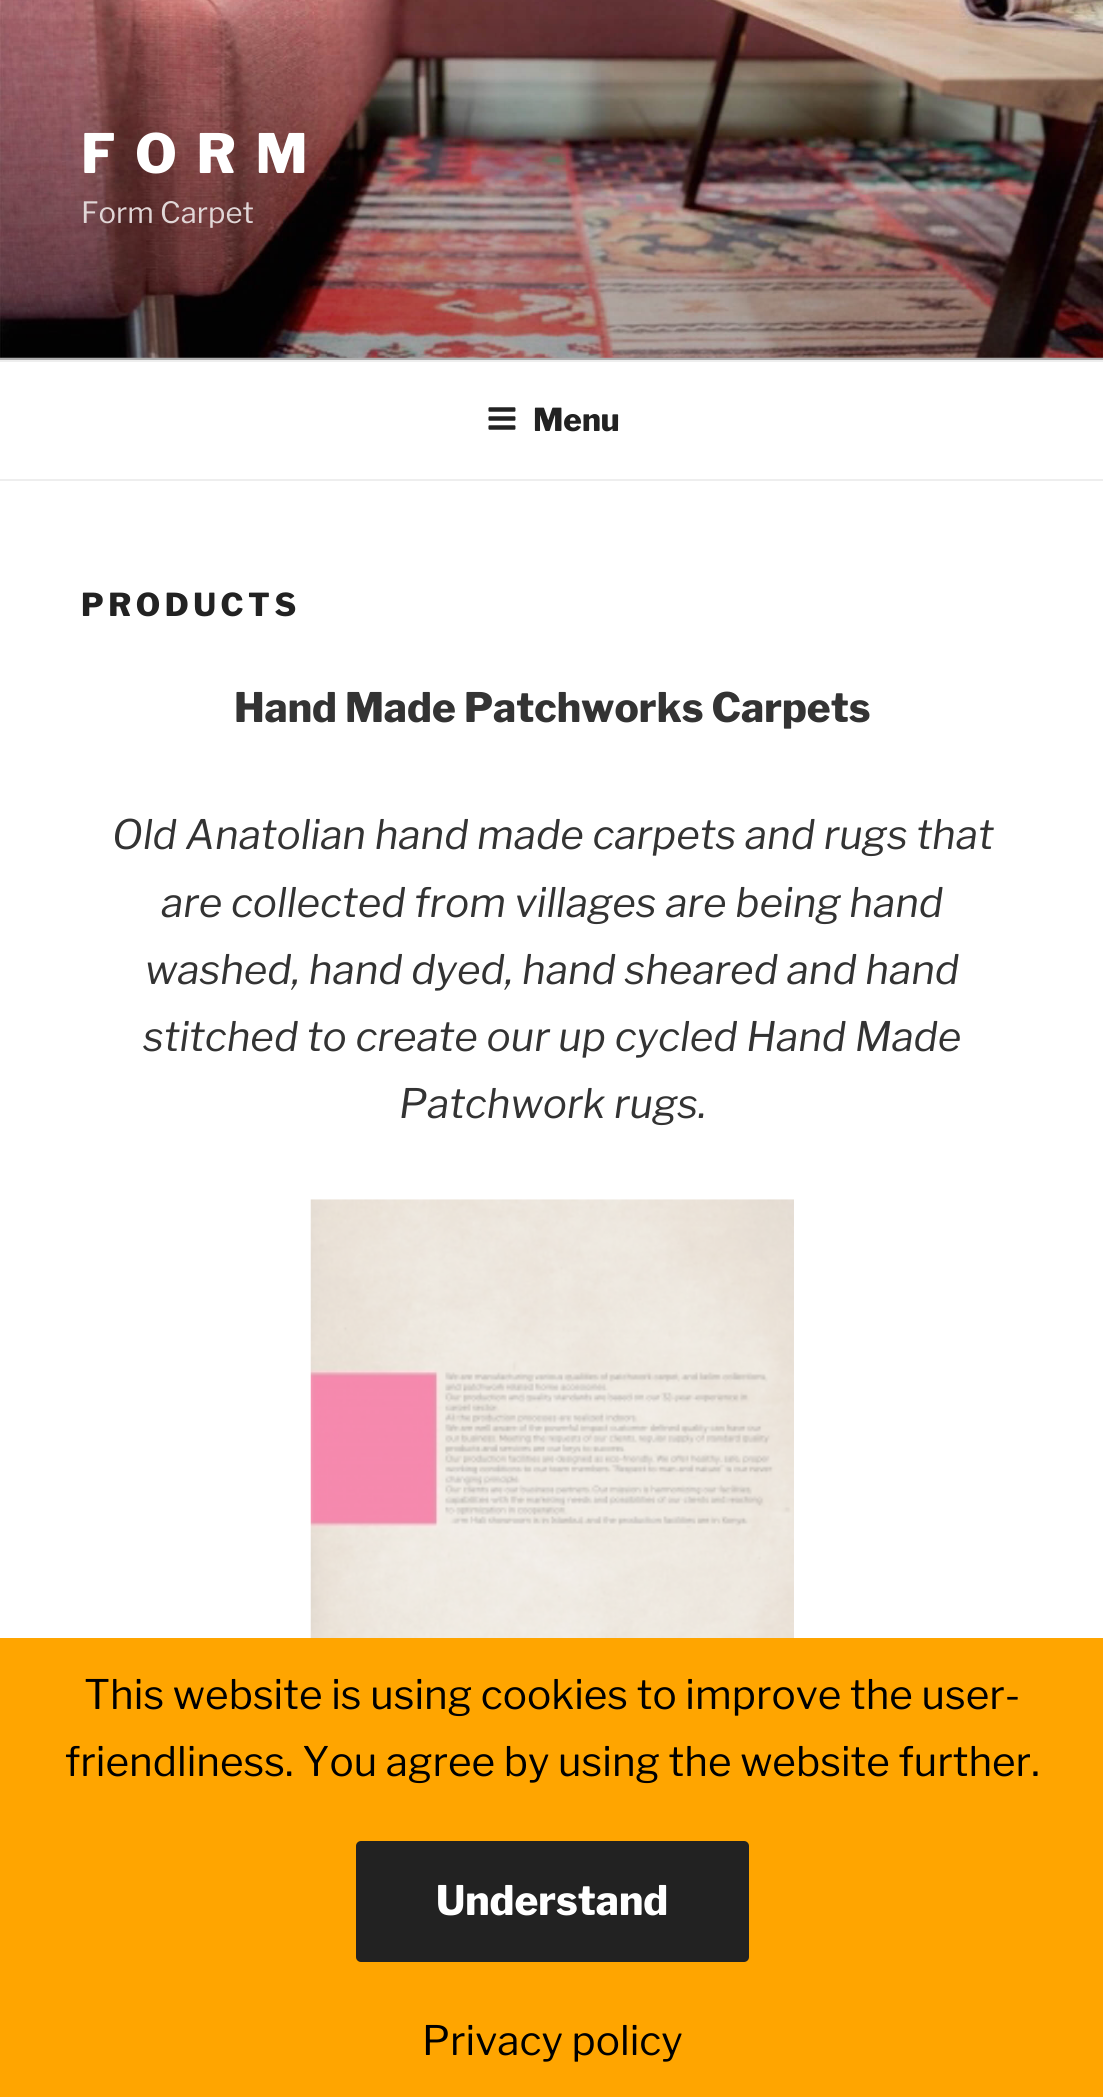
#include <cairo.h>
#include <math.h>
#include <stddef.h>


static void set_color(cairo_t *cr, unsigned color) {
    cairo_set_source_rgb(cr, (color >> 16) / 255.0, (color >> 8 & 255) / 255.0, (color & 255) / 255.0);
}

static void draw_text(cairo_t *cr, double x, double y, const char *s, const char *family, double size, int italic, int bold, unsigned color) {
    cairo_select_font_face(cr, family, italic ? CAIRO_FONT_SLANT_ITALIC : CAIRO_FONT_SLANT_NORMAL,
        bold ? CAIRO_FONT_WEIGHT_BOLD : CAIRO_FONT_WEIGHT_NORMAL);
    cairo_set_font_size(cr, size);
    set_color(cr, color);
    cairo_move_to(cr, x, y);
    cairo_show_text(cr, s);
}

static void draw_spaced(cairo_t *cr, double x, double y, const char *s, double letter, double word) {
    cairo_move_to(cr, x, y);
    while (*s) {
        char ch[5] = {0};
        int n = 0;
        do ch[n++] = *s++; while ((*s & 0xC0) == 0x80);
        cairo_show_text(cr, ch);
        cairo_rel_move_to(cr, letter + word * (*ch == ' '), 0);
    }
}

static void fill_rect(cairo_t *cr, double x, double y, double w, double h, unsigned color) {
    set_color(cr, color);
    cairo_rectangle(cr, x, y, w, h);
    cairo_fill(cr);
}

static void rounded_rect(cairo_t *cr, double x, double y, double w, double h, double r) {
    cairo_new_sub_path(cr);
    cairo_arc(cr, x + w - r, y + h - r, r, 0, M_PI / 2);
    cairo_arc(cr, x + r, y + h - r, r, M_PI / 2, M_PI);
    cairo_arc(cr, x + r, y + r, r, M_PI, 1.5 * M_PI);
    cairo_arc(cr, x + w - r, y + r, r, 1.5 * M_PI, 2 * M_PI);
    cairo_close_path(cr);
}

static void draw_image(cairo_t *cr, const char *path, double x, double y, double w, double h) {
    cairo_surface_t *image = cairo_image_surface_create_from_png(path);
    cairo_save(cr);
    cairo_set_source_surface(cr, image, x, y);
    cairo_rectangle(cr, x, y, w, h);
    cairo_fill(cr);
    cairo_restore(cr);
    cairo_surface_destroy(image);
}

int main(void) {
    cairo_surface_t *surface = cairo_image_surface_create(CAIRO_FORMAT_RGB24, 1103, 2097);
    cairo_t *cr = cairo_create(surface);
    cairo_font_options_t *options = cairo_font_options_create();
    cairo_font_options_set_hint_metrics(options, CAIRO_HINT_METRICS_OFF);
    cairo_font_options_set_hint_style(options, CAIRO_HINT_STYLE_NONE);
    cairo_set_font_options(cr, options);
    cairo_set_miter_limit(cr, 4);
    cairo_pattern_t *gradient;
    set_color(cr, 0xFFFFFF);
    cairo_paint(cr);
    fill_rect(cr, 0, 357, 1103, 3, 0xFAFAFA);
    draw_image(cr, "assets/img1.png", 0, 0, 1103, 358);
    gradient = cairo_pattern_create_linear(552, 0, 552, 360);
    cairo_pattern_add_color_stop_rgba(gradient, 0, 0, 0, 0, 0);
    cairo_pattern_add_color_stop_rgba(gradient, 0.75, 0, 0, 0, 0.3);
    cairo_pattern_add_color_stop_rgba(gradient, 1, 0, 0, 0, 0.3);
    cairo_set_source(cr, gradient);
    cairo_pattern_destroy(gradient);
    cairo_rectangle(cr, 0, 19, 1103, 341);
    cairo_fill(cr);
    cairo_select_font_face(cr, "Libre Franklin Thin", CAIRO_FONT_SLANT_NORMAL, CAIRO_FONT_WEIGHT_NORMAL);
    cairo_set_font_size(cr, 54);
    set_color(cr, 0xFFFFFF);
    draw_spaced(cr, 81, 173, "F O R M", 4.25, 0);
    draw_text(cr, 81, 223, "Form Carpet", "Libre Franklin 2 Thin", 29.25, 0, 0, 0xE1D7D7);
    fill_rect(cr, 0, 360, 1103, 2, 0xEEEEEE);
    fill_rect(cr, 0, 479, 1103, 2, 0xEEEEEE);
    draw_image(cr, "assets/img2.png", 488, 407, 28, 23);
    draw_text(cr, 533, 431, "Menu", "Libre Franklin Thin", 31.5, 0, 0, 0x222222);
    draw_spaced(cr, 81, 616, "PRODUCTS", 4.5, 0);
    draw_text(cr, 234, 722, "Hand Made Patchworks Carpets", "Libre Franklin Thin", 40.5, 0, 0, 0x333333);
    draw_text(cr, 112, 849, "Old Anatolian hand made carpets and rugs that", "Libre Franklin Thin", 40.5, 1, 0, 0x333333);
    draw_text(cr, 161, 917, "are collected from villages are being hand", "Libre Franklin Thin", 40.5, 1, 0, 0x333333);
    draw_text(cr, 145, 984, "washed, hand dyed, hand sheared and hand", "Libre Franklin Thin", 40.5, 1, 0, 0x333333);
    draw_text(cr, 143, 1051, "stitched to create our up cycled Hand Made", "Libre Franklin Thin", 40.5, 1, 0, 0x333333);
    draw_text(cr, 399, 1118, "Patchwork rugs.", "Libre Franklin Thin", 40.5, 1, 0, 0x333333);
    draw_image(cr, "assets/img3.png", 310, 1199, 484, 439);
    fill_rect(cr, 0, 1638, 1103, 459, 0xFFA500);
    draw_text(cr, 84, 1709, "This website is using cookies to improve the user-", "Libre Franklin 2 Thin", 40.5, 0, 0, 0x000000);
    draw_text(cr, 65, 1776, "friendliness. You agree by using the website further.", "Libre Franklin 2 Thin", 40.5, 0, 0, 0x000000);
    set_color(cr, 0x222222);
    rounded_rect(cr, 356, 1841, 393, 121, 5);
    cairo_fill(cr);
    draw_text(cr, 436, 1915, "Understand", "Libre Franklin Thin", 40.5, 0, 0, 0xFFFFFF);
    draw_text(cr, 422, 2055, "Privacy policy", "Libre Franklin 2 Thin", 40.5, 0, 0, 0x000000);
    cairo_surface_write_to_png(surface, "output.png");
    cairo_font_options_destroy(options);
    cairo_destroy(cr);
    cairo_surface_destroy(surface);
    return 0;
}
